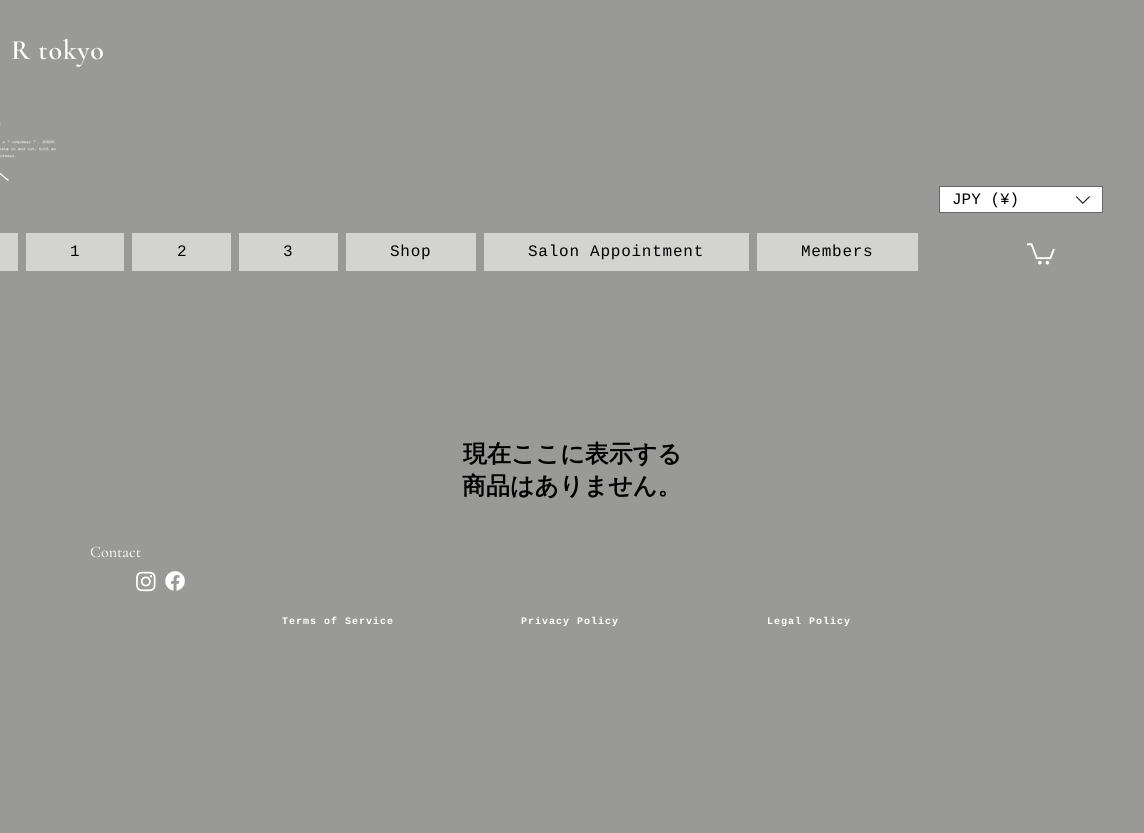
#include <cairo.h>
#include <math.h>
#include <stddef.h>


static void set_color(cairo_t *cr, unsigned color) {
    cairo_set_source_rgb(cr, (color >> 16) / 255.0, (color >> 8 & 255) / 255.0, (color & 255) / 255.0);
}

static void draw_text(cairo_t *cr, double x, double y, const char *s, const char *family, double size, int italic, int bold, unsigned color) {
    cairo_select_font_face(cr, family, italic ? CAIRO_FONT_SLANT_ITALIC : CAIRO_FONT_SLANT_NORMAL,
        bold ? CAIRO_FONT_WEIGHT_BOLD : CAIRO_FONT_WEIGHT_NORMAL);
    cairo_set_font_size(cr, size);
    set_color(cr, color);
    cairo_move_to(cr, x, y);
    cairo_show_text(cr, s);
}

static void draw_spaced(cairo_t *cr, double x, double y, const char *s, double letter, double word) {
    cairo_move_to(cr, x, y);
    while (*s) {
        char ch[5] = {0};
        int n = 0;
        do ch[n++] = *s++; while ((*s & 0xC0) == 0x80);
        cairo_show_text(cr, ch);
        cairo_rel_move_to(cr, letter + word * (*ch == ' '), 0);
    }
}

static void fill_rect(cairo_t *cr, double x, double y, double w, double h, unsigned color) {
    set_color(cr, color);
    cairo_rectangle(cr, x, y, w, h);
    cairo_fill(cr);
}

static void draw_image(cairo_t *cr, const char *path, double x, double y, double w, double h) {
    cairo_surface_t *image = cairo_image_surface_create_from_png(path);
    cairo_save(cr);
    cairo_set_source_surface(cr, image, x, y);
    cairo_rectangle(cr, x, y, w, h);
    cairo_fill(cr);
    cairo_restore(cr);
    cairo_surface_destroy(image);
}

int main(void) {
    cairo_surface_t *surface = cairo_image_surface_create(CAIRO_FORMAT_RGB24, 1144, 833);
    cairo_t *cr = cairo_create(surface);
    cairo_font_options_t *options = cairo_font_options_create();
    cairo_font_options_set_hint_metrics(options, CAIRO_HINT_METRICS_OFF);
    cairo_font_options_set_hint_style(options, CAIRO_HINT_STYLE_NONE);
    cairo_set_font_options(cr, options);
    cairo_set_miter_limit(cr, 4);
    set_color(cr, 0x999997);
    cairo_paint(cr);
    cairo_select_font_face(cr, "Cormorant Garamond SemiBold", CAIRO_FONT_SLANT_NORMAL, CAIRO_FONT_WEIGHT_NORMAL);
    cairo_set_font_size(cr, 28);
    set_color(cr, 0xFFFFFF);
    draw_spaced(cr, 11, 59, "R tokyo", 0.75, 0);
    draw_image(cr, "assets/img1.png", 0, 122, 56, 59);
    cairo_rectangle(cr, 939.5, 186.5, 163, 26);
    cairo_fill_preserve(cr);
    set_color(cr, 0x666666);
    cairo_set_line_width(cr, 1);
    cairo_stroke(cr);
    draw_text(cr, 952, 204, "JPY (¥)", "Liberation Mono", 16, 0, 0, 0x000000);
    draw_image(cr, "assets/img2.png", 1075, 196, 15, 8);
    fill_rect(cr, 0, 233, 18, 38, 0xD3D3D2);
    fill_rect(cr, 26, 233, 98, 38, 0xD3D3D2);
    set_color(cr, 0x000000);
    draw_spaced(cr, 70, 256, "1", 0.75, 0);
    fill_rect(cr, 132, 233, 99, 38, 0xD3D3D2);
    set_color(cr, 0x000000);
    draw_spaced(cr, 177, 256, "2", 0.75, 0);
    fill_rect(cr, 239, 233, 99, 38, 0xD3D3D2);
    set_color(cr, 0x000000);
    draw_spaced(cr, 283, 256, "3", 0.75, 0);
    fill_rect(cr, 346, 233, 130, 38, 0xD3D3D2);
    set_color(cr, 0x000000);
    draw_spaced(cr, 390, 256, "Shop", 0.75, 0);
    fill_rect(cr, 484, 233, 265, 38, 0xD3D3D2);
    set_color(cr, 0x000000);
    draw_spaced(cr, 528, 256, "Salon Appointment", 0.75, 0);
    fill_rect(cr, 757, 233, 161, 38, 0xD3D3D2);
    set_color(cr, 0x000000);
    draw_spaced(cr, 801, 256, "Members", 0.75, 0);
    draw_image(cr, "assets/img3.png", 1027, 243, 28, 22);
    draw_text(cr, 463, 462, "現在ここに表示する", "WenQuanYi Zen Hei", 24, 0, 1, 0x000000);
    draw_text(cr, 462, 494, "商品はありません。", "WenQuanYi Zen Hei", 24, 0, 1, 0x000000);
    draw_text(cr, 90, 557, "Contact", "Cormorant Garamond Medium", 16, 0, 0, 0xFFFFFF);
    draw_image(cr, "assets/img4.png", 136, 571, 20, 21);
    draw_image(cr, "assets/img5.png", 165, 571, 20, 20);
    cairo_select_font_face(cr, "Liberation Mono", CAIRO_FONT_SLANT_NORMAL, CAIRO_FONT_WEIGHT_BOLD);
    cairo_set_font_size(cr, 10);
    draw_spaced(cr, 282, 624, "Terms of Service", 1, 0);
    draw_spaced(cr, 521, 624, "Privacy Policy", 1, 0);
    draw_spaced(cr, 767, 624, "Legal Policy", 1, 0);
    cairo_surface_write_to_png(surface, "output.png");
    cairo_font_options_destroy(options);
    cairo_destroy(cr);
    cairo_surface_destroy(surface);
    return 0;
}
